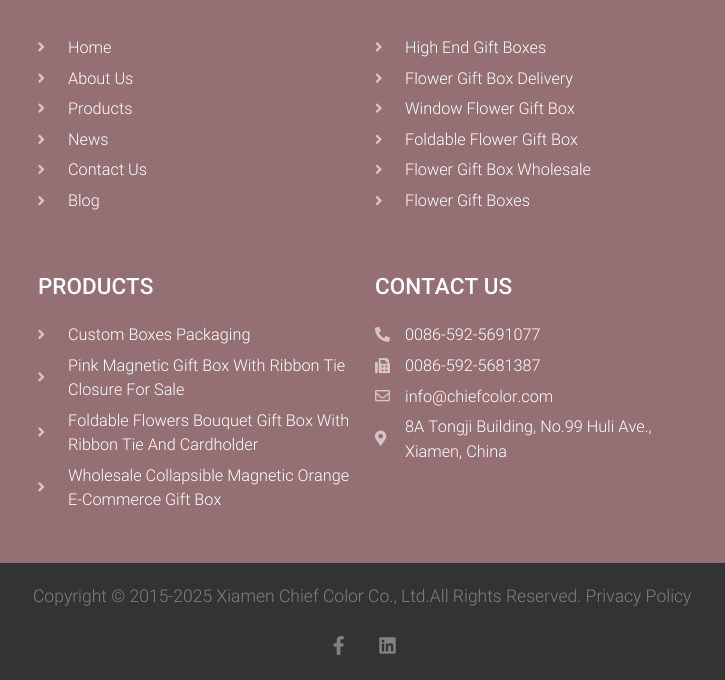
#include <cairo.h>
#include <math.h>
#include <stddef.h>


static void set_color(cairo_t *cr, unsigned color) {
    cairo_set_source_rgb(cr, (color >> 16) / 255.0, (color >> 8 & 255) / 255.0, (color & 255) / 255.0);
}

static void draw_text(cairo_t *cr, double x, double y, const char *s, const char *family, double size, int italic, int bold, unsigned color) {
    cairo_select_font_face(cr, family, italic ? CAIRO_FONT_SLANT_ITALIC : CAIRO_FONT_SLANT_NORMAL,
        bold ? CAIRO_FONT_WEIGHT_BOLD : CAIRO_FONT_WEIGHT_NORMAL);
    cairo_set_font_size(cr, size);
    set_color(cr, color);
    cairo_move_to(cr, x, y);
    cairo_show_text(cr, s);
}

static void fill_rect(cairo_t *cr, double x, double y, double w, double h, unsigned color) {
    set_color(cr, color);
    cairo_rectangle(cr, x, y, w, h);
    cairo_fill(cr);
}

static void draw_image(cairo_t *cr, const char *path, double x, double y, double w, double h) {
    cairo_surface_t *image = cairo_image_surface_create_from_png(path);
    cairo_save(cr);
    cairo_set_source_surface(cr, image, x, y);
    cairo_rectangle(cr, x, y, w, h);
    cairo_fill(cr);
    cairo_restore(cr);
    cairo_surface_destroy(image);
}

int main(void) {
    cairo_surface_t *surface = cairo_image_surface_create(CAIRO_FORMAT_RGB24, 725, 680);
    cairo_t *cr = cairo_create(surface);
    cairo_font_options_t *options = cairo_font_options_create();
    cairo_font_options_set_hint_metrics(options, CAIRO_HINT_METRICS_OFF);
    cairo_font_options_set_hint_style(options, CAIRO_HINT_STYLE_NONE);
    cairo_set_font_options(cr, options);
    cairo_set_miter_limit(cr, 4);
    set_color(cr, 0x946F73);
    cairo_paint(cr);
    draw_image(cr, "assets/img1.png", 38, 42, 7, 10);
    draw_text(cr, 68, 53, "Home", "Roboto Light", 16.25, 0, 0, 0xFFFFFF);
    draw_image(cr, "assets/img2.png", 38, 73, 7, 10);
    draw_text(cr, 68, 84, "About Us", "Roboto Light", 16.25, 0, 0, 0xFFFFFF);
    draw_image(cr, "assets/img2.png", 38, 103, 7, 10);
    draw_text(cr, 68, 114, "Products", "Roboto Light", 16.25, 0, 0, 0xFFFFFF);
    draw_image(cr, "assets/img3.png", 38, 134, 7, 10);
    draw_text(cr, 68, 145, "News", "Roboto Light", 16.25, 0, 0, 0xFFFFFF);
    draw_image(cr, "assets/img3.png", 38, 164, 7, 10);
    draw_text(cr, 68, 175, "Contact Us", "Roboto Light", 16.25, 0, 0, 0xFFFFFF);
    draw_image(cr, "assets/img4.png", 38, 196, 7, 10);
    draw_text(cr, 68, 206, "Blog", "Roboto Light", 16.25, 0, 0, 0xFFFFFF);
    draw_image(cr, "assets/img5.png", 375, 42, 7, 10);
    draw_text(cr, 405, 53, "High End Gift Boxes", "Roboto Light", 16.25, 0, 0, 0xFFFFFF);
    draw_image(cr, "assets/img6.png", 375, 73, 7, 10);
    draw_text(cr, 405, 84, "Flower Gift Box Delivery", "Roboto Light", 16.25, 0, 0, 0xFFFFFF);
    draw_image(cr, "assets/img6.png", 375, 103, 7, 10);
    draw_text(cr, 405, 114, "Window Flower Gift Box", "Roboto Light", 16.25, 0, 0, 0xFFFFFF);
    draw_image(cr, "assets/img7.png", 375, 134, 7, 10);
    draw_text(cr, 405, 145, "Foldable Flower Gift Box", "Roboto Light", 16.25, 0, 0, 0xFFFFFF);
    draw_image(cr, "assets/img7.png", 375, 164, 7, 10);
    draw_text(cr, 405, 175, "Flower Gift Box Wholesale", "Roboto Light", 16.25, 0, 0, 0xFFFFFF);
    draw_image(cr, "assets/img8.png", 375, 196, 7, 10);
    draw_text(cr, 405, 206, "Flower Gift Boxes", "Roboto Light", 16.25, 0, 0, 0xFFFFFF);
    draw_text(cr, 38, 294, "PRODUCTS", "Roboto Medium", 22.5, 0, 0, 0xFFFFFF);
    draw_image(cr, "assets/img3.png", 38, 329, 7, 10);
    draw_text(cr, 68, 340, "Custom Boxes Packaging", "Roboto Light", 16.25, 0, 0, 0xFFFFFF);
    draw_image(cr, "assets/img1.png", 38, 372, 7, 10);
    draw_text(cr, 68, 371, "Pink Magnetic Gift Box With Ribbon Tie", "Roboto Light", 16.25, 0, 0, 0xFFFFFF);
    draw_text(cr, 68, 395, "Closure For Sale", "Roboto Light", 16.25, 0, 0, 0xFFFFFF);
    draw_image(cr, "assets/img1.png", 38, 427, 7, 10);
    draw_text(cr, 68, 426, "Foldable Flowers Bouquet Gift Box With", "Roboto Light", 16.25, 0, 0, 0xFFFFFF);
    draw_text(cr, 68, 450, "Ribbon Tie And Cardholder", "Roboto Light", 16.25, 0, 0, 0xFFFFFF);
    draw_image(cr, "assets/img1.png", 38, 482, 7, 10);
    draw_text(cr, 68, 481, "Wholesale Collapsible Magnetic Orange", "Roboto Light", 16.25, 0, 0, 0xFFFFFF);
    draw_text(cr, 68, 505, "E-Commerce Gift Box", "Roboto Light", 16.25, 0, 0, 0xFFFFFF);
    draw_text(cr, 375, 294, "CONTACT US", "Roboto Medium", 22.5, 0, 0, 0xFFFFFF);
    draw_image(cr, "assets/img9.png", 375, 326, 15, 16);
    draw_text(cr, 405, 340, "0086-592-5691077", "Roboto Light", 16.25, 0, 0, 0xFFFFFF);
    draw_image(cr, "assets/img10.png", 375, 358, 15, 16);
    draw_text(cr, 405, 371, "0086-592-5681387", "Roboto Light", 16.25, 0, 0, 0xFFFFFF);
    draw_image(cr, "assets/img11.png", 375, 390, 15, 12);
    draw_text(cr, 405, 402, "info@chiefcolor.com", "Roboto Light", 16.25, 0, 0, 0xFFFFFF);
    draw_image(cr, "assets/img12.png", 375, 430, 12, 16);
    draw_text(cr, 405, 432, "8A Tongji Building, No.99 Huli Ave.,", "Roboto Light", 16.25, 0, 0, 0xFFFFFF);
    draw_text(cr, 405, 457, "Xiamen, China", "Roboto Light", 16.25, 0, 0, 0xFFFFFF);
    fill_rect(cr, 0, 563, 725, 117, 0x333333);
    draw_text(cr, 33, 602, "Copyright © 2015-2025 Xiamen Chief Color Co., Ltd.All Rights Reserved. Privacy Policy", "Roboto Light", 17.5, 0, 0, 0x7E7E7E);
    draw_image(cr, "assets/img13.png", 333, 636, 11, 19);
    draw_image(cr, "assets/img14.png", 379, 637, 17, 17);
    cairo_surface_write_to_png(surface, "output.png");
    cairo_font_options_destroy(options);
    cairo_destroy(cr);
    cairo_surface_destroy(surface);
    return 0;
}
